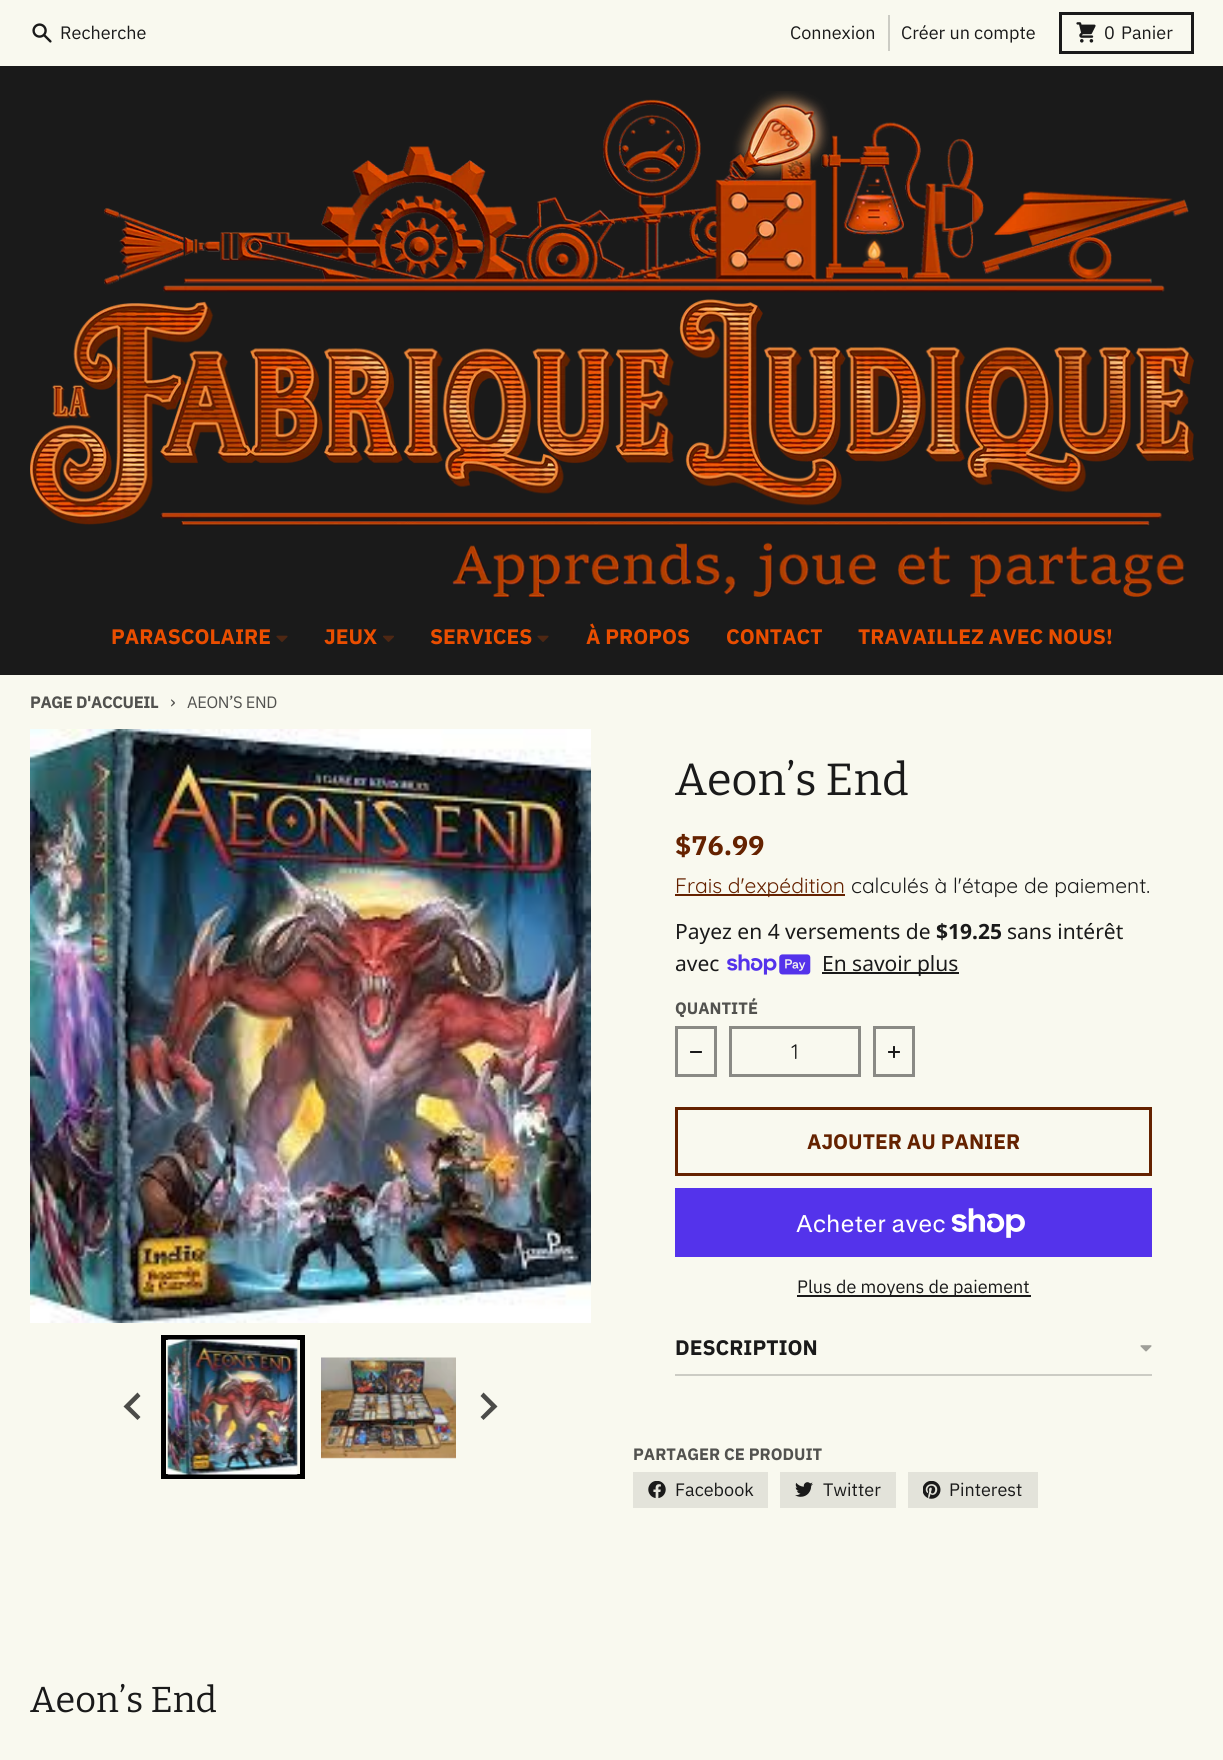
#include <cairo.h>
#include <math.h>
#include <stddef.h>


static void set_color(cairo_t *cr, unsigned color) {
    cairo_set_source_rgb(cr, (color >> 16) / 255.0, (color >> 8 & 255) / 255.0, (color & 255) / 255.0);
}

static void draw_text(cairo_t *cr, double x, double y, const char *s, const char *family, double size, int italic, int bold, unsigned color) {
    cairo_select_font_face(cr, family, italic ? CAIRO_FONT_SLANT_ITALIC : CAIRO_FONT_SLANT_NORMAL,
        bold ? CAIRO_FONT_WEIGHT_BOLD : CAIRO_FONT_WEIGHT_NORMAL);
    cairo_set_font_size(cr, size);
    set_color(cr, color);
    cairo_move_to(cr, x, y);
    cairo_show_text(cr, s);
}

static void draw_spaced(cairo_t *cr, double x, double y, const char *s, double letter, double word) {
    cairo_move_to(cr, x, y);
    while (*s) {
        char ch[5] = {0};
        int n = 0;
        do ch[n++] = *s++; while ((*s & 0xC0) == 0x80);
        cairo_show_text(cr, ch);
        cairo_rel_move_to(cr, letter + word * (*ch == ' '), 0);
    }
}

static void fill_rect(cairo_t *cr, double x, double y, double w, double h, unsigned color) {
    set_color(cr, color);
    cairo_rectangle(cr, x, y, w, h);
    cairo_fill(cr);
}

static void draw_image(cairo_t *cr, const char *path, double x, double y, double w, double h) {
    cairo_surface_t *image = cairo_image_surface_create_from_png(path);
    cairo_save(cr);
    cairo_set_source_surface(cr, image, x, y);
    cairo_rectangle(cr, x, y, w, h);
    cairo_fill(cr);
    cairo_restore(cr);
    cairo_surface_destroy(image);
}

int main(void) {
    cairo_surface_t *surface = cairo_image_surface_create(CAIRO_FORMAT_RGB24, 1223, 1760);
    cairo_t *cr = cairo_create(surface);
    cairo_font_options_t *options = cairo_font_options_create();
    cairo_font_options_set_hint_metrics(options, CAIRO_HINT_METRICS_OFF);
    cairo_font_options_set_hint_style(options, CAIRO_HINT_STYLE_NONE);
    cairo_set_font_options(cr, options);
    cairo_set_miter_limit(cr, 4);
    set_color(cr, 0x1A1A1A);
    cairo_paint(cr);
    fill_rect(cr, 0, 0, 1223, 66, 0xF9F9EF);
    draw_image(cr, "assets/img1.png", 32, 23, 20, 20);
    draw_text(cr, 60, 39, "Recherche", "IBM Plex Sans", 18, 0, 0, 0x1A1A1A);
    draw_text(cr, 790, 39, "Connexion", "IBM Plex Sans", 18, 0, 0, 0x1A1A1A);
    fill_rect(cr, 888, 15, 2, 36, 0xCCCCC4);
    draw_text(cr, 901, 39, "Créer un compte", "IBM Plex Sans", 18, 0, 0, 0x1A1A1A);
    cairo_rectangle(cr, 1060.5, 13.5, 132, 39);
    cairo_set_line_width(cr, 3);
    cairo_stroke(cr);
    draw_image(cr, "assets/img2.png", 1076, 22, 20, 21);
    draw_text(cr, 1104, 39, "0", "IBM Plex Sans", 18, 0, 0, 0x1A1A1A);
    draw_text(cr, 1121, 39, "Panier", "IBM Plex Sans", 18, 0, 0, 0x1A1A1A);
    draw_image(cr, "assets/img3.png", 30, 91, 1164, 506);
    draw_text(cr, 111, 644, "PARASCOLAIRE", "IBM Plex Sans", 21, 0, 1, 0xEA4E00);
    draw_image(cr, "assets/img4.png", 276, 635, 12, 7);
    draw_text(cr, 324, 644, "JEUX", "IBM Plex Sans", 21, 0, 1, 0xEA4E00);
    draw_image(cr, "assets/img5.png", 383, 635, 11, 7);
    draw_text(cr, 430, 644, "SERVICES", "IBM Plex Sans", 21, 0, 1, 0xEA4E00);
    draw_image(cr, "assets/img4.png", 537, 635, 12, 7);
    draw_text(cr, 586, 644, "À PROPOS", "IBM Plex Sans", 21, 0, 1, 0xEA4E00);
    draw_text(cr, 726, 644, "CONTACT", "IBM Plex Sans", 21, 0, 1, 0xEA4E00);
    draw_text(cr, 858, 644, "TRAVAILLEZ AVEC NOUS!", "IBM Plex Sans", 21, 0, 1, 0xEA4E00);
    fill_rect(cr, 0, 675, 1223, 1085, 0xF9F9EF);
    cairo_set_font_size(cr, 16.5);
    set_color(cr, 0x52524F);
    draw_spaced(cr, 30, 708, "PAGE D'ACCUEIL", -0.4, 0);
    cairo_select_font_face(cr, "IBM Plex Sans", CAIRO_FONT_SLANT_NORMAL, CAIRO_FONT_WEIGHT_NORMAL);
    cairo_set_font_size(cr, 18);
    draw_spaced(cr, 170, 708, "›", -0.4, 0);
    cairo_set_font_size(cr, 16.5);
    draw_spaced(cr, 187, 708, "AEON’S END", -0.4, 0);
    draw_image(cr, "assets/img6.png", 30, 729, 561, 594);
    cairo_rectangle(cr, 163.5, 1337.5, 139, 139);
    set_color(cr, 0x000000);
    cairo_set_line_width(cr, 5);
    cairo_stroke(cr);
    draw_image(cr, "assets/img7.png", 167, 1339, 131, 136);
    draw_image(cr, "assets/img8.png", 321, 1357, 135, 102);
    set_color(cr, 0x4B4B48);
    cairo_new_path(cr);
    cairo_move_to(cr, 137.5, 1392.5);
    cairo_line_to(cr, 140.5, 1396);
    cairo_line_to(cr, 130, 1406.5);
    cairo_line_to(cr, 140.5, 1417);
    cairo_line_to(cr, 137.5, 1420);
    cairo_line_to(cr, 123.5, 1406.5);
    cairo_close_path(cr);
    cairo_fill(cr);
    cairo_new_path(cr);
    cairo_move_to(cr, 483.5, 1392.5);
    cairo_line_to(cr, 480.5, 1396);
    cairo_line_to(cr, 491, 1406.5);
    cairo_line_to(cr, 480.5, 1417);
    cairo_line_to(cr, 483.5, 1420);
    cairo_line_to(cr, 497.5, 1406.5);
    cairo_close_path(cr);
    cairo_fill(cr);
    draw_text(cr, 675, 795, "Aeon’s End", "Bitter", 45, 0, 0, 0x1A1A1A);
    draw_text(cr, 675, 855, "$76.99", "IBM Plex Sans", 27, 0, 1, 0x652200);
    fill_rect(cr, 675, 894, 170, 2, 0x652200);
    draw_text(cr, 675, 893, "Frais d'expédition", "Quicksand", 21, 0, 0, 0x652200);
    draw_text(cr, 851, 893, "calculés à l'étape de paiement.", "Quicksand", 21, 0, 0, 0x1A1A1A);
    draw_text(cr, 675, 939, "Payez en 4 versements de", "Noto Sans", 21, 0, 0, 0x1A1A1A);
    draw_text(cr, 936, 939, "$19.25", "Noto Sans", 21, 0, 1, 0x1A1A1A);
    draw_text(cr, 1007, 939, "sans intérêt", "Noto Sans", 21, 0, 0, 0x1A1A1A);
    draw_text(cr, 675, 971, "avec", "Noto Sans", 21, 0, 0, 0x1A1A1A);
    draw_image(cr, "assets/img9.png", 727, 954, 84, 21);
    fill_rect(cr, 822, 972, 137, 2, 0x1A1A1A);
    draw_text(cr, 822, 971, "En savoir plus", "Noto Sans", 21, 0, 0, 0x1A1A1A);
    draw_text(cr, 675, 1014, "QUANTITÉ", "IBM Plex Sans", 16.5, 0, 1, 0x52524F);
    cairo_rectangle(cr, 676.5, 1027.5, 39, 48);
    set_color(cr, 0x8A8A85);
    cairo_set_line_width(cr, 3);
    cairo_stroke(cr);
    draw_image(cr, "assets/img10.png", 690, 1051, 12, 2);
    cairo_rectangle(cr, 730.5, 1027.5, 129, 48);
    cairo_stroke(cr);
    draw_text(cr, 791, 1059, "1", "Quicksand", 21, 0, 0, 0x1A1A1A);
    cairo_rectangle(cr, 874.5, 1027.5, 39, 48);
    set_color(cr, 0x8A8A85);
    cairo_stroke(cr);
    draw_image(cr, "assets/img11.png", 888, 1046, 12, 12);
    cairo_rectangle(cr, 676.5, 1108.5, 474, 66);
    set_color(cr, 0x652200);
    cairo_stroke(cr);
    draw_text(cr, 807, 1149, "AJOUTER AU PANIER", "IBM Plex Sans", 21, 0, 1, 0x652200);
    fill_rect(cr, 675, 1188, 477, 69, 0x5433EB);
    draw_text(cr, 796, 1232, "Acheter avec", "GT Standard", 24, 0, 0, 0xFFFFFF);
    draw_image(cr, "assets/img12.png", 951, 1208, 74, 30);
    fill_rect(cr, 797, 1295, 234, 2, 0x1A1A1A);
    draw_text(cr, 797, 1293, "Plus de moyens de paiement", "IBM Plex Sans", 18, 0, 0, 0x1A1A1A);
    fill_rect(cr, 675, 1374, 477, 2, 0xCCCCC4);
    draw_text(cr, 675, 1355, "DESCRIPTION", "IBM Plex Sans", 21, 0, 1, 0x1A1A1A);
    draw_image(cr, "assets/img13.png", 1140, 1345, 12, 7);
    draw_text(cr, 633, 1460, "PARTAGER CE PRODUIT", "IBM Plex Sans", 16.5, 0, 1, 0x52524F);
    fill_rect(cr, 633, 1472, 135, 36, 0xE3E3DA);
    draw_image(cr, "assets/img14.png", 648, 1481, 18, 18);
    draw_text(cr, 675, 1496, "Facebook", "IBM Plex Sans", 18, 0, 0, 0x1A1A1A);
    fill_rect(cr, 780, 1472, 116, 36, 0xE3E3DA);
    draw_image(cr, "assets/img15.png", 795, 1482, 18, 15);
    draw_text(cr, 823, 1496, "Twitter", "IBM Plex Sans", 18, 0, 0, 0x1A1A1A);
    fill_rect(cr, 908, 1472, 130, 36, 0xE3E3DA);
    draw_image(cr, "assets/img16.png", 923, 1481, 18, 18);
    draw_text(cr, 949, 1496, "Pinterest", "IBM Plex Sans", 18, 0, 0, 0x1A1A1A);
    draw_text(cr, 30, 1712, "Aeon’s End", "Bitter", 36, 0, 0, 0x1A1A1A);
    cairo_surface_write_to_png(surface, "output.png");
    cairo_font_options_destroy(options);
    cairo_destroy(cr);
    cairo_surface_destroy(surface);
    return 0;
}
